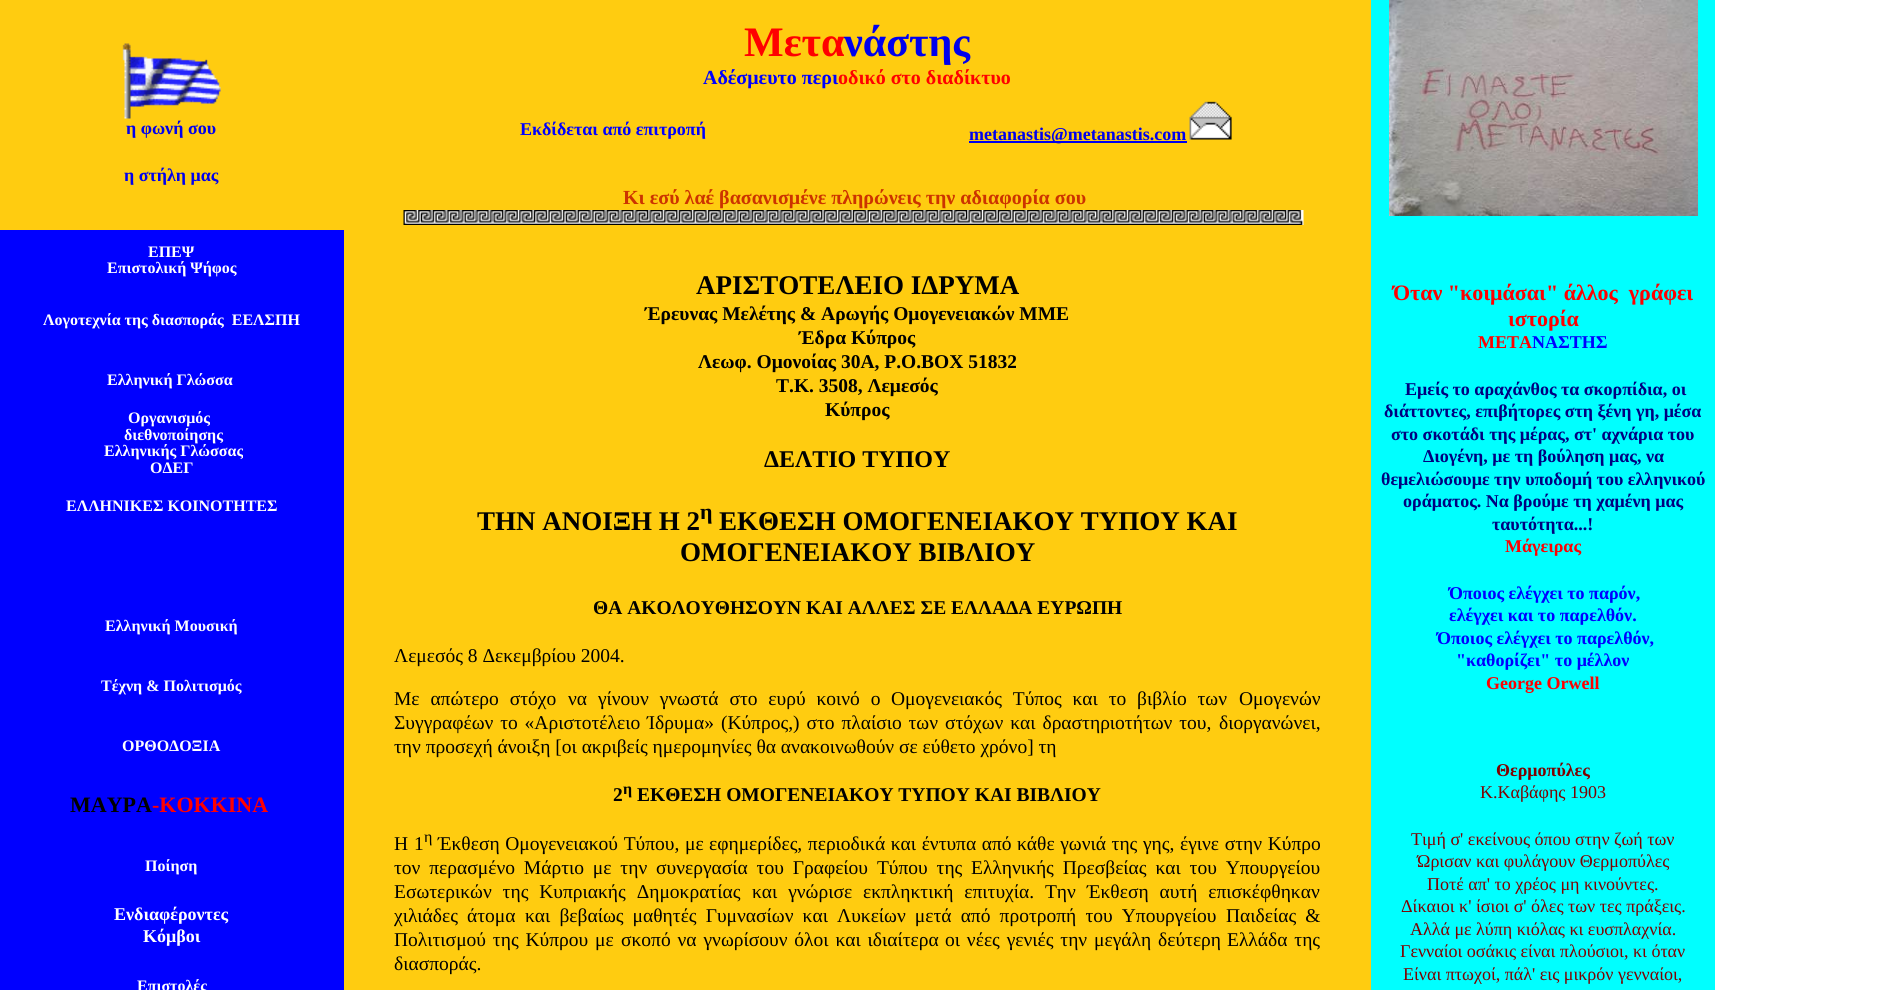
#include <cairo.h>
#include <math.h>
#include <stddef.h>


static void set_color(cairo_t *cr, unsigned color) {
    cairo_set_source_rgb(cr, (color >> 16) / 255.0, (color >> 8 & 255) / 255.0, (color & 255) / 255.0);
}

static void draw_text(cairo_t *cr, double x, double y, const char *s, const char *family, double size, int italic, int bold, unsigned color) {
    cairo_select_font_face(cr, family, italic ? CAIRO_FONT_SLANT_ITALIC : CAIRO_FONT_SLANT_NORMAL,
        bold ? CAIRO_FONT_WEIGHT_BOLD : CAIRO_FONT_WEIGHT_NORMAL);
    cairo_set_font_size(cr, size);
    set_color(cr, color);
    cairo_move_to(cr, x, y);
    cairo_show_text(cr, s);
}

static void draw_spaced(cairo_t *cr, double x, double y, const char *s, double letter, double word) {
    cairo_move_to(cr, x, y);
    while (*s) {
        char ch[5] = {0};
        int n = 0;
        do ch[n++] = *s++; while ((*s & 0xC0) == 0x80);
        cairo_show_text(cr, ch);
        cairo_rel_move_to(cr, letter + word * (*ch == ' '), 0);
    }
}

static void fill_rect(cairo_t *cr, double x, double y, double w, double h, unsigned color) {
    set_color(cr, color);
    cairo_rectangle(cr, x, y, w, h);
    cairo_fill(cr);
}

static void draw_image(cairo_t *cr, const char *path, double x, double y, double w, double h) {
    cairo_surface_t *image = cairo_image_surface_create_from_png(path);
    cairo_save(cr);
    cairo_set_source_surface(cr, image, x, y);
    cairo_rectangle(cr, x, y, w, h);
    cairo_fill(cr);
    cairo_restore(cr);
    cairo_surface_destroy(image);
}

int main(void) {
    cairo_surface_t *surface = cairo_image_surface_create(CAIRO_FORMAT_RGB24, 1904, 990);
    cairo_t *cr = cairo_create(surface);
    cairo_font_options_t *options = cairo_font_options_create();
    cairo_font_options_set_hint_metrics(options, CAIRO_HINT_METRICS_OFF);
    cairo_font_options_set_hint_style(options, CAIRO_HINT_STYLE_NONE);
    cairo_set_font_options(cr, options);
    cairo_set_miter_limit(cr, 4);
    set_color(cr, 0xFFFFFF);
    cairo_paint(cr);
    fill_rect(cr, 0, 0, 1371, 230, 0xFFCC10);
    draw_image(cr, "assets/img1.png", 122, 43, 99, 76);
    draw_text(cr, 126, 134, "η φωνή σου", "Liberation Serif", 18, 0, 1, 0x0000EE);
    draw_text(cr, 124, 181, "η στήλη μας", "Liberation Serif", 18, 0, 1, 0x0000EE);
    draw_text(cr, 744, 56, "Μετα", "Liberation Serif", 42, 0, 1, 0xFF0000);
    draw_text(cr, 844, 56, "νάστης", "Liberation Serif", 42, 0, 1, 0x0000EE);
    draw_text(cr, 703, 84, "Αδέσμευτο περι", "Liberation Serif", 20, 0, 1, 0x0000FF);
    draw_text(cr, 838, 84, "οδικό στο διαδίκτυο", "Liberation Serif", 20, 0, 1, 0xFF0000);
    draw_text(cr, 520, 135, "Εκδίδεται από επιτροπή", "Liberation Serif", 18, 0, 1, 0x0000FF);
    fill_rect(cr, 969, 141, 218, 2, 0x0000EE);
    draw_text(cr, 969, 140, "metanastis@metanastis.com", "Liberation Serif", 18, 0, 1, 0x0000EE);
    draw_image(cr, "assets/img2.png", 1189, 101, 43, 39);
    draw_text(cr, 623, 204, "Κι εσύ λαέ βασανισμένε πληρώνεις την αδιαφορία σου", "Liberation Serif", 20, 0, 1, 0xCC3300);
    draw_image(cr, "assets/img3.png", 403, 210, 901, 15);
    fill_rect(cr, 1371, 0, 344, 990, 0x00FFFF);
    draw_image(cr, "assets/img4.png", 1389, 0, 309, 216);
    fill_rect(cr, 0, 230, 344, 760, 0x0000FF);
    draw_text(cr, 148, 257, "ΕΠΕΨ", "Liberation Serif", 16, 0, 1, 0xFFFFFF);
    draw_text(cr, 107, 273, "Επιστολική Ψήφος", "Liberation Serif", 16, 0, 1, 0xFFFFFF);
    draw_text(cr, 43, 325, "Λογοτεχνία της διασποράς  ΕΕΛΣΠΗ", "Liberation Serif", 16, 0, 1, 0xFFFFFF);
    draw_text(cr, 107, 385, "Ελληνική Γλώσσα", "Liberation Serif", 16, 0, 1, 0xFFFFFF);
    draw_text(cr, 128, 423, "Οργανισμός", "Liberation Serif", 16, 0, 1, 0xFFFFFF);
    draw_text(cr, 124, 440, "διεθνοποίησης", "Liberation Serif", 16, 0, 1, 0xFFFFFF);
    draw_text(cr, 104, 456, "Ελληνικής Γλώσσας", "Liberation Serif", 16, 0, 1, 0xFFFFFF);
    draw_text(cr, 150, 473, "ΟΔΕΓ", "Liberation Serif", 16, 0, 1, 0xFFFFFF);
    draw_text(cr, 66, 511, "ΕΛΛΗΝΙΚΕΣ ΚΟΙΝΟΤΗΤΕΣ", "Liberation Serif", 16, 0, 1, 0xFFFFFF);
    draw_text(cr, 105, 631, "Ελληνική Μουσική", "Liberation Serif", 16, 0, 1, 0xFFFFFF);
    draw_text(cr, 101, 691, "Τέχνη & Πολιτισμός", "Liberation Serif", 16, 0, 1, 0xFFFFFF);
    draw_text(cr, 122, 751, "ΟΡΘΟΔΟΞΙΑ", "Liberation Serif", 16, 0, 1, 0xFFFFFF);
    draw_text(cr, 70, 812, "ΜΑΥΡΑ", "Liberation Serif", 22, 0, 1, 0x000000);
    draw_text(cr, 152, 812, "-ΚΟΚΚΙΝΑ", "Liberation Serif", 22, 0, 1, 0xFF0000);
    draw_text(cr, 145, 871, "Ποίηση", "Liberation Serif", 16, 0, 1, 0xFFFFFF);
    draw_text(cr, 114, 920, "Ενδιαφέροντες", "Liberation Serif", 18, 0, 1, 0xFFFFFF);
    draw_text(cr, 143, 942, "Κόμβοι", "Liberation Serif", 18, 0, 1, 0xFFFFFF);
    draw_text(cr, 137, 991, "Επιστολές", "Liberation Serif", 16, 0, 1, 0xFFFFFF);
    fill_rect(cr, 344, 230, 1027, 760, 0xFFCC10);
    draw_text(cr, 696, 294, "ΑΡΙΣΤΟΤΕΛΕΙΟ ΙΔΡΥΜΑ", "Liberation Serif", 27, 0, 1, 0x000000);
    draw_text(cr, 645, 320, "Έρευνας Μελέτης & Αρωγής Ομογενειακών ΜΜΕ", "Liberation Serif", 19.5, 0, 1, 0x000000);
    draw_text(cr, 799, 344, "Έδρα Κύπρος", "Liberation Serif", 19.5, 0, 1, 0x000000);
    draw_text(cr, 698, 368, "Λεωφ. Ομονοίας 30A, P.O.BOX 51832", "Liberation Serif", 19.5, 0, 1, 0x000000);
    draw_text(cr, 776, 392, "T.K. 3508, Λεμεσός", "Liberation Serif", 19.5, 0, 1, 0x000000);
    draw_text(cr, 825, 416, "Κύπρος", "Liberation Serif", 19.5, 0, 1, 0x000000);
    draw_text(cr, 764, 467, "ΔΕΛΤΙΟ ΤΥΠΟΥ", "Liberation Serif", 24, 0, 1, 0x000000);
    draw_text(cr, 477, 530, "ΤΗΝ ΑΝΟΙΞΗ Η 2", "Liberation Serif", 27, 0, 1, 0x000000);
    draw_text(cr, 700, 519, "η", "Liberation Serif", 22, 0, 1, 0x000000);
    draw_text(cr, 719, 530, "ΕΚΘΕΣΗ ΟΜΟΓΕΝΕΙΑΚΟΥ ΤΥΠΟΥ ΚΑΙ", "Liberation Serif", 27, 0, 1, 0x000000);
    draw_text(cr, 680, 561, "ΟΜΟΓΕΝΕΙΑΚΟΥ ΒΙΒΛΙΟΥ", "Liberation Serif", 27, 0, 1, 0x000000);
    draw_text(cr, 593, 614, "ΘΑ ΑΚΟΛΟΥΘΗΣΟΥΝ ΚΑΙ ΑΛΛΕΣ ΣΕ ΕΛΛΑΔΑ ΕΥΡΩΠΗ", "Liberation Serif", 19.5, 0, 1, 0x000000);
    draw_text(cr, 394, 662, "Λεμεσός 8 Δεκεμβρίου 2004.", "Liberation Serif", 19.5, 0, 0, 0x000000);
    draw_spaced(cr, 394, 705, "Με απώτερο στόχο", 0, 6);
    draw_spaced(cr, 568, 705, "να γίνουν γνωστά στο ευρύ κοινό ο", 0, 6);
    draw_spaced(cr, 891, 705, "Ομογενειακός Τύπος και το βιβλίο των", 0, 6);
    draw_text(cr, 1239, 705, "Ομογενών", "Liberation Serif", 19.5, 0, 0, 0x000000);
    draw_spaced(cr, 394, 729, "Συγγραφέων το «Αριστοτέλειο", 0, 2);
    draw_spaced(cr, 647, 729, "Ίδρυμα» (Κύπρος,) στο πλαίσιο των", 0, 2);
    draw_spaced(cr, 945, 729, "στόχων και δραστηριοτήτων του,", 0, 2);
    draw_text(cr, 1219, 729, "διοργανώνει,", "Liberation Serif", 19.5, 0, 0, 0x000000);
    draw_text(cr, 394, 753, "την προσεχή άνοιξη [οι ακριβείς ημερομηνίες θα ανακοινωθούν σε εύθετο χρόνο] τη", "Liberation Serif", 19.5, 0, 0, 0x000000);
    draw_text(cr, 613, 801, "2", "Liberation Serif", 19.5, 0, 1, 0x000000);
    draw_text(cr, 623, 794, "η", "Liberation Serif", 16, 0, 1, 0x000000);
    draw_text(cr, 637, 801, "ΕΚΘΕΣΗ ΟΜΟΓΕΝΕΙΑΚΟΥ ΤΥΠΟΥ ΚΑΙ ΒΙΒΛΙΟΥ", "Liberation Serif", 19.5, 0, 1, 0x000000);
    cairo_select_font_face(cr, "Liberation Serif", CAIRO_FONT_SLANT_NORMAL, CAIRO_FONT_WEIGHT_NORMAL);
    draw_spaced(cr, 394, 850, "Η 1", 0, 1);
    draw_text(cr, 424, 842, "η", "Liberation Serif", 16, 0, 0, 0x000000);
    cairo_set_font_size(cr, 19.5);
    draw_spaced(cr, 438, 850, "Έκθεση Ομογενειακού Τύπου, με", 0, 0.75);
    draw_spaced(cr, 709, 850, "εφημερίδες, περιοδικά και έντυπα από", 0, 0.75);
    draw_spaced(cr, 1017, 850, "κάθε γωνιά της γης, έγινε στην Κύπρο", 0, 0.75);
    draw_spaced(cr, 394, 874, "τον περασμένο Μάρτιο με την", 0, 4);
    draw_spaced(cr, 656, 874, "συνεργασία του Γραφείου Τύπου της", 0, 4);
    draw_spaced(cr, 971, 874, "Ελληνικής Πρεσβείας και του Υπουργείου", 0, 4);
    draw_spaced(cr, 394, 898, "Εσωτερικών της Κυπριακής Δημοκρατίας", 0, 6);
    draw_spaced(cr, 752, 898, "και γνώρισε εκπληκτική επιτυχία. Την", 0, 6);
    draw_spaced(cr, 1087, 898, "Έκθεση αυτή επισκέφθηκαν", 0, 6);
    draw_spaced(cr, 394, 922, "χιλιάδες άτομα", 0, 4.25);
    draw_spaced(cr, 525, 922, "και βεβαίως μαθητές Γυμνασίων και", 0, 4.25);
    draw_spaced(cr, 837, 922, "Λυκείων μετά από προτροπή του Υπουργείου", 0, 4.25);
    draw_spaced(cr, 1226, 922, "Παιδείας &", 0, 4.25);
    draw_spaced(cr, 394, 946, "Πολιτισμού της Κύπρου με", 0, 2);
    draw_spaced(cr, 621, 946, "σκοπό να γνωρίσουν όλοι και ιδιαίτερα", 0, 2);
    draw_spaced(cr, 945, 946, "οι νέες γενιές την μεγάλη δεύτερη", 0, 2);
    draw_spaced(cr, 1227, 946, "Ελλάδα της", 0, 2);
    draw_text(cr, 394, 970, "διασποράς.", "Liberation Serif", 19.5, 0, 0, 0x000000);
    draw_text(cr, 1393, 300, "Όταν \"κοιμάσαι\" άλλος  γράφει", "Liberation Serif", 22, 0, 1, 0xFF0000);
    draw_text(cr, 1508, 326, "ιστορία", "Liberation Serif", 22, 0, 1, 0xFF0000);
    draw_text(cr, 1478, 348, "ΜΕΤΑ", "Liberation Serif", 18, 0, 1, 0xFF0000);
    draw_text(cr, 1532, 348, "ΝΑΣΤΗΣ", "Liberation Serif", 18, 0, 1, 0x0000FF);
    draw_text(cr, 1405, 395, "Εμείς το αραχάνθος τα σκορπίδια, οι", "Liberation Serif", 18, 0, 1, 0x00007F);
    draw_text(cr, 1384, 417, "διάττοντες, επιβήτορες στη ξένη γη, μέσα", "Liberation Serif", 18, 0, 1, 0x00007F);
    draw_text(cr, 1391, 440, "στο σκοτάδι της μέρας, στ' αχνάρια του", "Liberation Serif", 18, 0, 1, 0x00007F);
    draw_text(cr, 1423, 462, "Διογένη, με τη βούληση μας, να", "Liberation Serif", 18, 0, 1, 0x00007F);
    draw_text(cr, 1381, 485, "θεμελιώσουμε την υποδομή του ελληνικού", "Liberation Serif", 18, 0, 1, 0x00007F);
    draw_text(cr, 1403, 507, "οράματος. Να βρούμε τη χαμένη μας", "Liberation Serif", 18, 0, 1, 0x00007F);
    draw_text(cr, 1492, 530, "ταυτότητα...!", "Liberation Serif", 18, 0, 1, 0x00007F);
    draw_text(cr, 1505, 552, "Μάγειρας", "Liberation Serif", 18, 0, 1, 0xFF0000);
    draw_text(cr, 1449, 599, "Όποιος ελέγχει το παρόν,", "Liberation Serif", 18, 0, 1, 0x0000FF);
    draw_text(cr, 1449, 621, "ελέγχει και το παρελθόν.", "Liberation Serif", 18, 0, 1, 0x0000FF);
    draw_text(cr, 1437, 644, "Όποιος ελέγχει το παρελθόν,", "Liberation Serif", 18, 0, 1, 0x0000FF);
    draw_text(cr, 1456, 666, "\"καθορίζει\" το μέλλον", "Liberation Serif", 18, 0, 1, 0x0000FF);
    draw_text(cr, 1486, 689, "George Orwell", "Liberation Serif", 18, 0, 1, 0xFF0000);
    draw_text(cr, 1496, 776, "Θερμοπύλες", "Liberation Serif", 18, 0, 1, 0x800000);
    draw_text(cr, 1480, 798, "Κ.Καβάφης 1903", "Liberation Serif", 18, 0, 0, 0x800000);
    draw_text(cr, 1411, 845, "Τιμή σ' εκείνους όπου στην ζωή των", "Liberation Serif", 18, 0, 0, 0x800000);
    draw_text(cr, 1417, 867, "Ώρισαν και φυλάγουν Θερμοπύλες", "Liberation Serif", 18, 0, 0, 0x800000);
    draw_text(cr, 1427, 890, "Ποτέ απ' το χρέος μη κινούντες.", "Liberation Serif", 18, 0, 0, 0x800000);
    draw_text(cr, 1401, 912, "Δίκαιοι κ' ίσιοι σ' όλες των τες πράξεις.", "Liberation Serif", 18, 0, 0, 0x800000);
    draw_text(cr, 1410, 935, "Αλλά με λύπη κιόλας κι ευσπλαχνία.", "Liberation Serif", 18, 0, 0, 0x800000);
    draw_text(cr, 1400, 957, "Γενναίοι οσάκις είναι πλούσιοι, κι όταν", "Liberation Serif", 18, 0, 0, 0x800000);
    draw_text(cr, 1403, 980, "Είναι πτωχοί, πάλ' εις μικρόν γενναίοι,", "Liberation Serif", 18, 0, 0, 0x800000);
    cairo_surface_write_to_png(surface, "output.png");
    cairo_font_options_destroy(options);
    cairo_destroy(cr);
    cairo_surface_destroy(surface);
    return 0;
}
